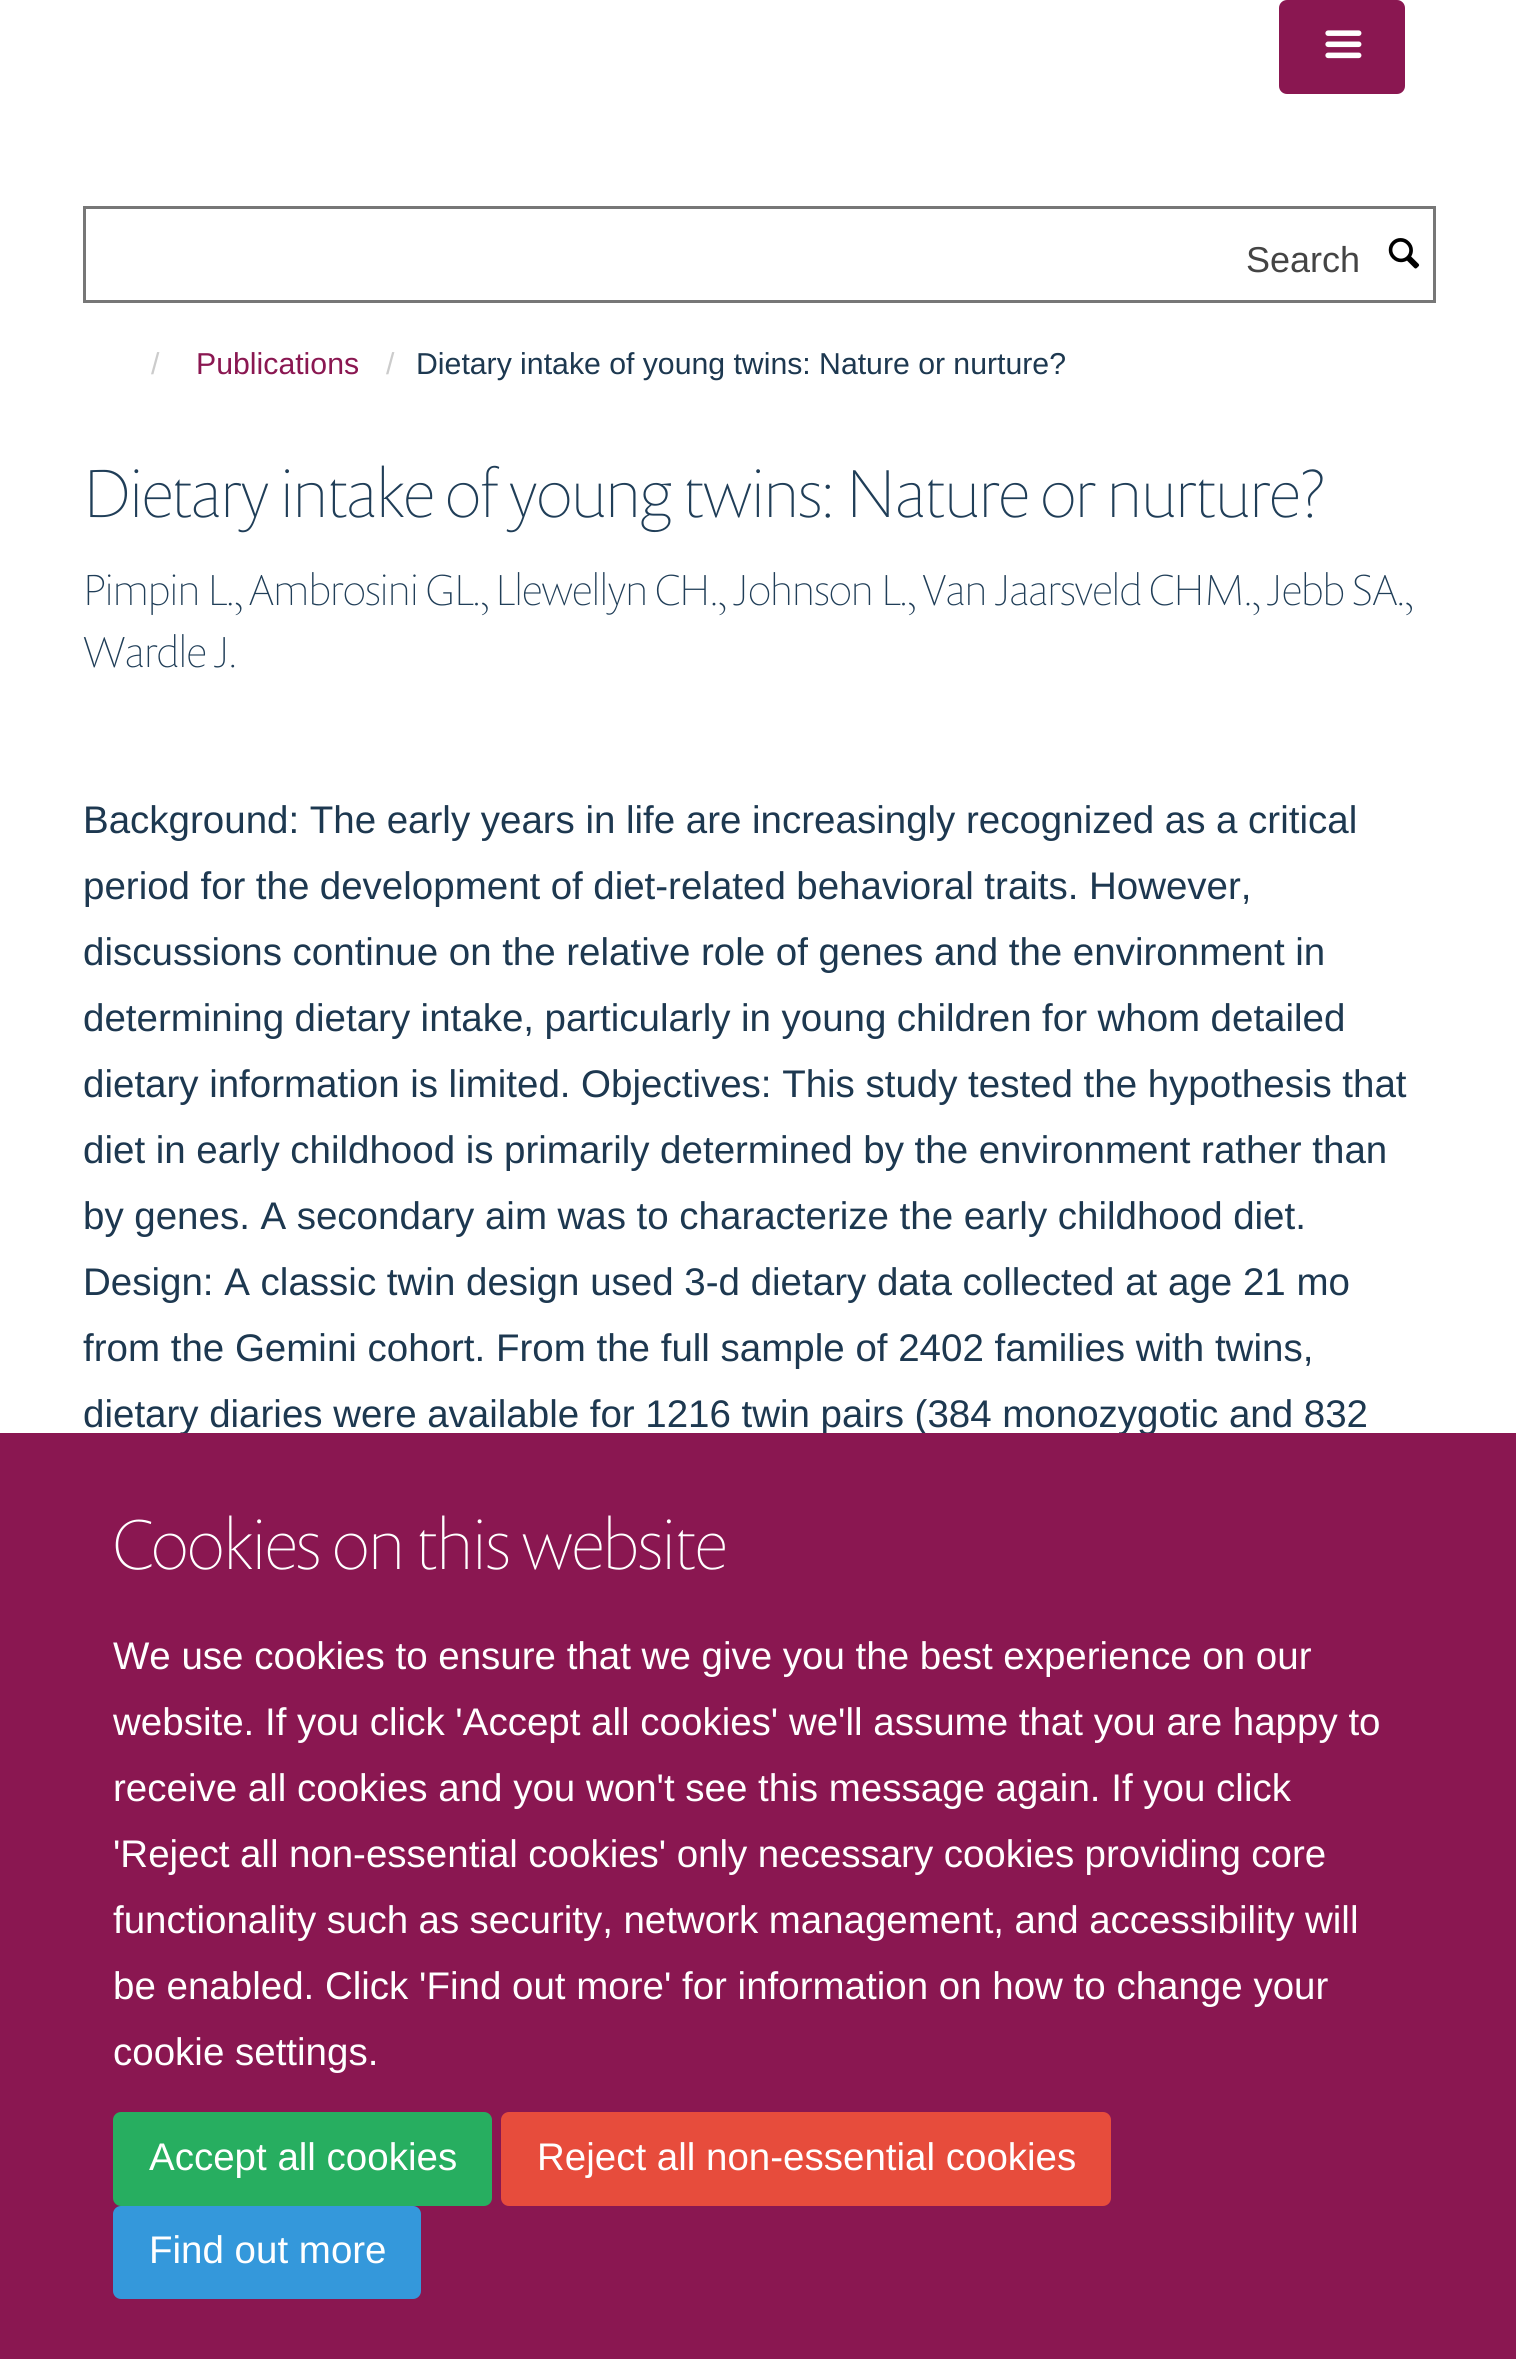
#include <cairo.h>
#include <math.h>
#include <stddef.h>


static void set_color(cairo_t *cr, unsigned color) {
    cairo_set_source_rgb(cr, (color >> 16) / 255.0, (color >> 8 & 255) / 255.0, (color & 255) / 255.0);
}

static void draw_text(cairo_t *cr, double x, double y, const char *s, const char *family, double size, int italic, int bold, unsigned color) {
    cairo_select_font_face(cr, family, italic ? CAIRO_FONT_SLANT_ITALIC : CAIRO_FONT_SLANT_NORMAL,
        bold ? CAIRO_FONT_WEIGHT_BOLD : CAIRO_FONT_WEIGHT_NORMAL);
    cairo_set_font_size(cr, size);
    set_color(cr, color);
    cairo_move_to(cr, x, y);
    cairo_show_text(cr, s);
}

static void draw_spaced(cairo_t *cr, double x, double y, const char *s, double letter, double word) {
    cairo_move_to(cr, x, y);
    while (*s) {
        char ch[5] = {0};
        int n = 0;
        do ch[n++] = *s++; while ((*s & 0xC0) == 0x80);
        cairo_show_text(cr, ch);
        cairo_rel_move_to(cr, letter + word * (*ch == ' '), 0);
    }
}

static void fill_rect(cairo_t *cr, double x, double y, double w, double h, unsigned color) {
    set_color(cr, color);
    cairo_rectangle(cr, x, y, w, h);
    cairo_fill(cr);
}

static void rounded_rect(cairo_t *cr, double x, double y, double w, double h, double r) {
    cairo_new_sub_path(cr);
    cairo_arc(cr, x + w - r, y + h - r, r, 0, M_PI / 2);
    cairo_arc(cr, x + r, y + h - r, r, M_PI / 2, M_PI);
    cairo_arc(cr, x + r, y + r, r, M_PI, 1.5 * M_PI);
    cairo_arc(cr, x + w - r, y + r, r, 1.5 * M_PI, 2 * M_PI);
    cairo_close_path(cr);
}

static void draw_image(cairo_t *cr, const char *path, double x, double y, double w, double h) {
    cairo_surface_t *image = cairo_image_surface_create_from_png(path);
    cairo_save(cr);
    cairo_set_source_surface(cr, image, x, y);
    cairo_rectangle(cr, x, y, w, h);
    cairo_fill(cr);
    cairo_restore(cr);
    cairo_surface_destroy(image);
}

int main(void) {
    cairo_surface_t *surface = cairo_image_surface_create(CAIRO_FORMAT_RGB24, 1516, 2359);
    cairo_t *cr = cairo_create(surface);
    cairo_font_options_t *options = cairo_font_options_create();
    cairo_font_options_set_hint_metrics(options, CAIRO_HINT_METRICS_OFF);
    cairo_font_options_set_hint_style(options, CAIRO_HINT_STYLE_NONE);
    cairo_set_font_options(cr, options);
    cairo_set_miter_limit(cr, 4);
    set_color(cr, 0xFFFFFF);
    cairo_paint(cr);
    set_color(cr, 0x8A1751);
    rounded_rect(cr, 1280.5, 1.5, 123, 91, 6.5);
    cairo_fill_preserve(cr);
    cairo_set_line_width(cr, 3);
    cairo_stroke(cr);
    draw_image(cr, "assets/img1.png", 1325, 30, 37, 29);
    cairo_rectangle(cr, 84.5, 207.5, 1350, 94);
    set_color(cr, 0x777777);
    cairo_stroke(cr);
    draw_text(cr, 1246, 272, "Search", "Liberation Sans", 36, 0, 0, 0x444444);
    draw_image(cr, "assets/img2.png", 1388, 238, 32, 31);
    draw_text(cr, 151, 374, "/", "Liberation Sans", 30.25, 0, 0, 0xCCCCCC);
    draw_text(cr, 196, 374, "Publications", "Liberation Sans", 30.25, 0, 0, 0x8A1751);
    draw_text(cr, 386, 374, "/", "Liberation Sans", 30.25, 0, 0, 0xCCCCCC);
    set_color(cr, 0x1D3850);
    draw_spaced(cr, 416, 374, "Dietary intake of young twins: Nature or nurture?", 0, -0.1);
    draw_text(cr, 83, 517, "Dietary intake of young twins: Nature or nurture?", "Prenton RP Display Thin", 68.75, 0, 0, 0x203E58);
    draw_text(cr, 83, 605, "Pimpin L., Ambrosini GL., Llewellyn CH., Johnson L., Van Jaarsveld CHM., Jebb SA.,", "Prenton RP Display Thin", 44, 0, 0, 0x203E58);
    draw_text(cr, 83, 667, "Wardle J.", "Prenton RP Display Thin", 44, 0, 0, 0x203E58);
    cairo_select_font_face(cr, "Liberation Sans", CAIRO_FONT_SLANT_NORMAL, CAIRO_FONT_WEIGHT_NORMAL);
    cairo_set_font_size(cr, 38.5);
    set_color(cr, 0x1D3850);
    draw_spaced(cr, 83, 833, "Background: The early years in life are increasingly recognized as a critical", 0, -0.1);
    draw_spaced(cr, 83, 899, "period for the development of diet-related behavioral traits. However,", 0, -0.25);
    draw_spaced(cr, 83, 965, "discussions continue on the relative role of genes and the environment in", 0, -0.1);
    draw_spaced(cr, 83, 1031, "determining dietary intake, particularly in young children for whom detailed", 0, -0.25);
    draw_spaced(cr, 83, 1097, "dietary information is limited. Objectives: This study tested the hypothesis that", 0, -0.1);
    draw_spaced(cr, 83, 1163, "diet in early childhood is primarily determined by the environment rather than", 0, -0.1);
    draw_spaced(cr, 83, 1229, "by genes. A secondary aim was to characterize the early childhood diet.", 0, -0.1);
    draw_text(cr, 83, 1295, "Design: A classic twin design used 3-d dietary data collected at age 21 mo", "Liberation Sans", 38.5, 0, 0, 0x1D3850);
    draw_text(cr, 83, 1361, "from the Gemini cohort. From the full sample of 2402 families with twins,", "Liberation Sans", 38.5, 0, 0, 0x1D3850);
    draw_spaced(cr, 83, 1427, "dietary diaries were available for 1216 twin pairs (384 monozygotic and 832", 0, -0.1);
    fill_rect(cr, 0, 1433, 1516, 926, 0x8A1751);
    draw_text(cr, 113, 1569, "Cookies on this website", "Prenton RP Display Thin", 71.5, 0, 0, 0xFFFFFF);
    draw_text(cr, 113, 1669, "We use cookies to ensure that we give you the best experience on our", "Liberation Sans", 38.5, 0, 0, 0xFFFFFF);
    draw_text(cr, 113, 1735, "website. If you click 'Accept all cookies' we'll assume that you are happy to", "Liberation Sans", 38.5, 0, 0, 0xFFFFFF);
    draw_text(cr, 113, 1801, "receive all cookies and you won't see this message again. If you click", "Liberation Sans", 38.5, 0, 0, 0xFFFFFF);
    draw_spaced(cr, 113, 1867, "'Reject all non-essential cookies' only necessary cookies providing core", 0, -0.25);
    draw_spaced(cr, 113, 1933, "functionality such as security, network management, and accessibility will", 0, -0.25);
    draw_text(cr, 113, 1999, "be enabled. Click 'Find out more' for information on how to change your", "Liberation Sans", 38.5, 0, 0, 0xFFFFFF);
    draw_text(cr, 113, 2065, "cookie settings.", "Liberation Sans", 38.5, 0, 0, 0xFFFFFF);
    set_color(cr, 0x27AE60);
    rounded_rect(cr, 114.5, 2113.5, 376, 91, 6.5);
    cairo_fill_preserve(cr);
    cairo_stroke(cr);
    draw_text(cr, 149, 2170, "Accept all cookies", "Liberation Sans", 38.5, 0, 0, 0xFFFFFF);
    set_color(cr, 0xE74C3C);
    rounded_rect(cr, 502.5, 2113.5, 607, 91, 6.5);
    cairo_fill_preserve(cr);
    cairo_stroke(cr);
    draw_text(cr, 537, 2170, "Reject all non-essential cookies", "Liberation Sans", 38.5, 0, 0, 0xFFFFFF);
    set_color(cr, 0x3498DB);
    rounded_rect(cr, 114.5, 2207.5, 305, 90, 6.5);
    cairo_fill_preserve(cr);
    cairo_stroke(cr);
    draw_text(cr, 149, 2263, "Find out more", "Liberation Sans", 38.5, 0, 0, 0xFFFFFF);
    cairo_surface_write_to_png(surface, "output.png");
    cairo_font_options_destroy(options);
    cairo_destroy(cr);
    cairo_surface_destroy(surface);
    return 0;
}
